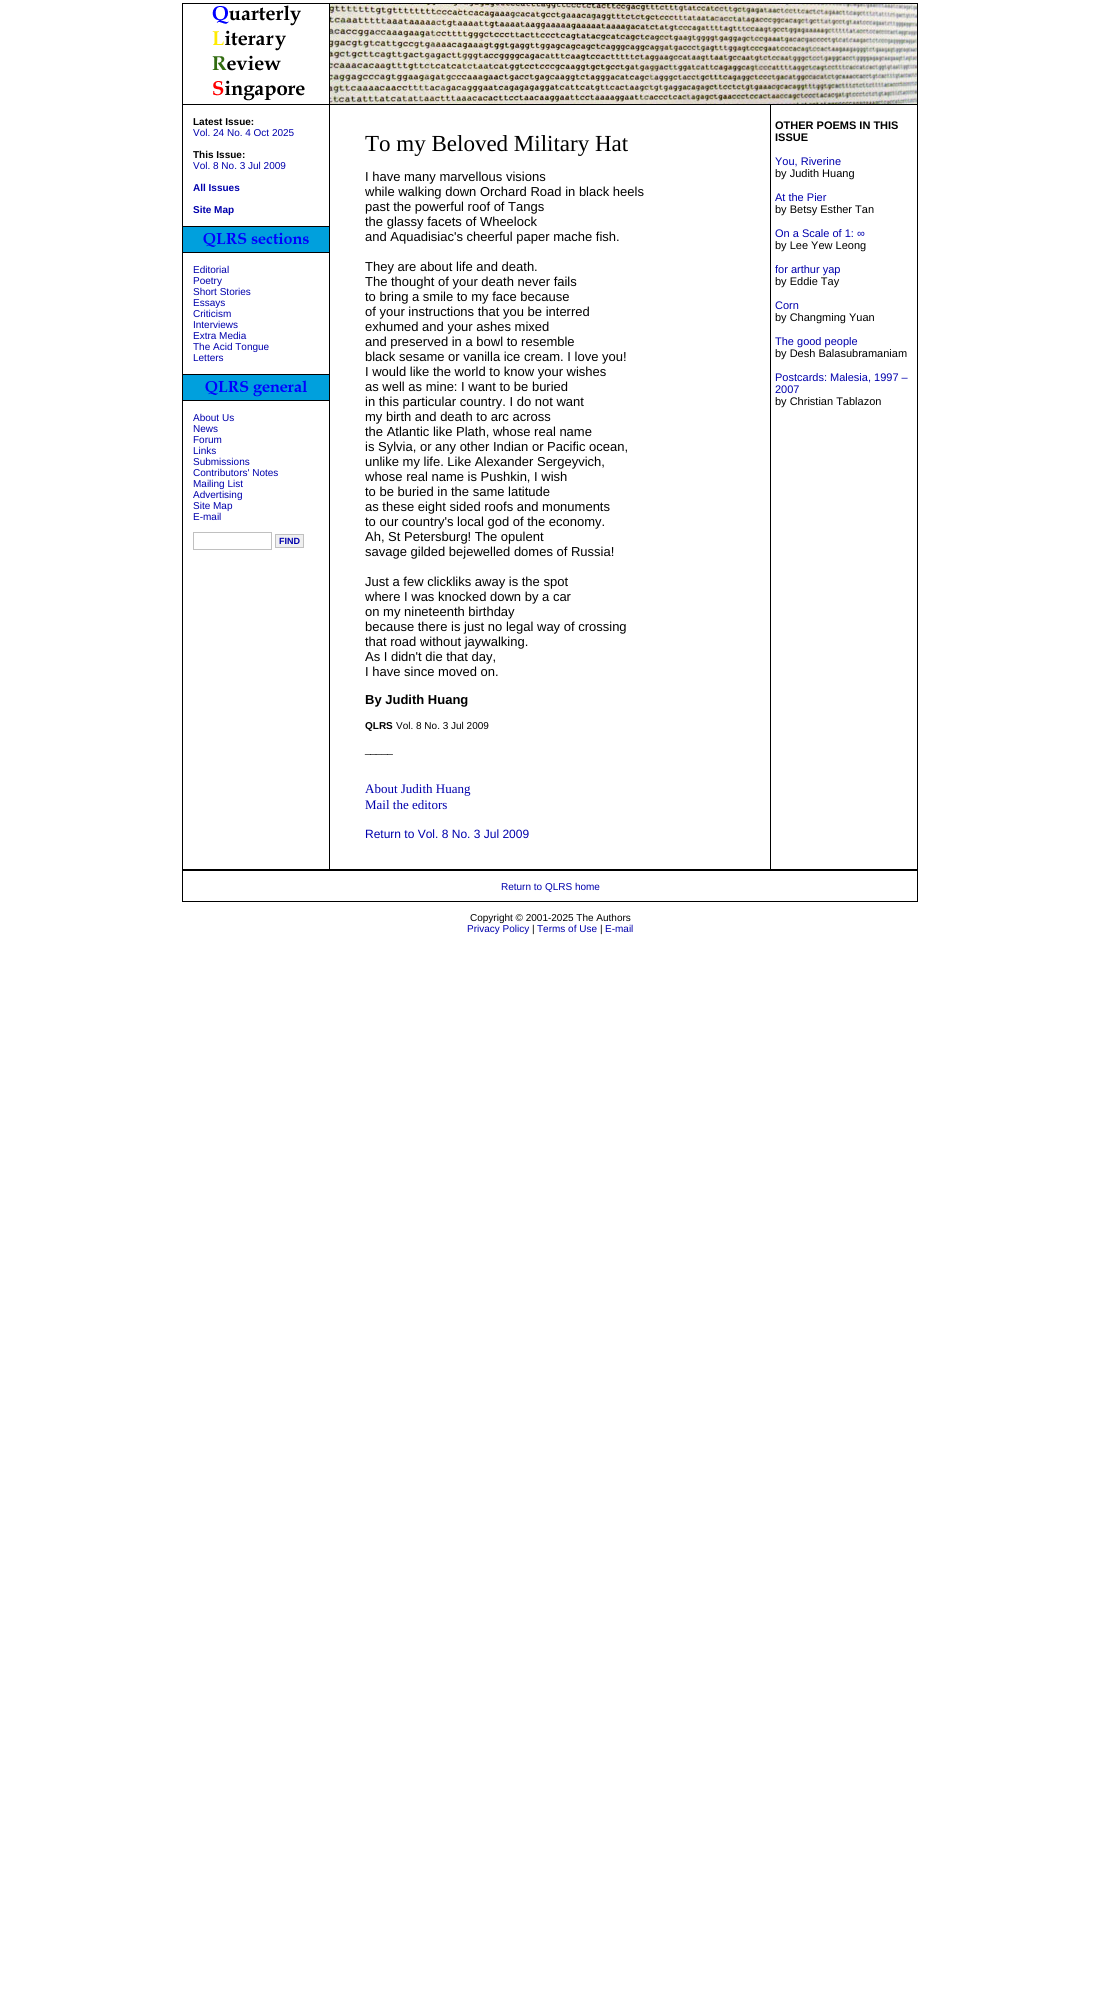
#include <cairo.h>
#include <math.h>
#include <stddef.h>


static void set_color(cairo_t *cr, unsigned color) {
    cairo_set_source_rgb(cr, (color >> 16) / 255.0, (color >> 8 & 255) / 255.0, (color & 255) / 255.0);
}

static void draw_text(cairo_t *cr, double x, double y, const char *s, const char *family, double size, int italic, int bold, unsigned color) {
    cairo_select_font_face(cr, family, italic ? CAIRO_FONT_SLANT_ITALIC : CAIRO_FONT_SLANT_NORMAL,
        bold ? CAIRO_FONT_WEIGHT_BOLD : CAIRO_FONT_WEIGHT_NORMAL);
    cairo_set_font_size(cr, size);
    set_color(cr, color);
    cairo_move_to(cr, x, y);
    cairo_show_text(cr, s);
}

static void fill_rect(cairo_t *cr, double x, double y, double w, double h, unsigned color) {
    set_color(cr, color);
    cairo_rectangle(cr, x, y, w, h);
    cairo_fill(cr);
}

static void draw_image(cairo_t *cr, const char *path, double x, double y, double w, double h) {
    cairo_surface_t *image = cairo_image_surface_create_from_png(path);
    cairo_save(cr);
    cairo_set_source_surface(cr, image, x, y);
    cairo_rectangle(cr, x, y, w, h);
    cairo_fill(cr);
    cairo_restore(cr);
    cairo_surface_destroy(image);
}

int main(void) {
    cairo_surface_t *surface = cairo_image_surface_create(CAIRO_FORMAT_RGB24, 1100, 1998);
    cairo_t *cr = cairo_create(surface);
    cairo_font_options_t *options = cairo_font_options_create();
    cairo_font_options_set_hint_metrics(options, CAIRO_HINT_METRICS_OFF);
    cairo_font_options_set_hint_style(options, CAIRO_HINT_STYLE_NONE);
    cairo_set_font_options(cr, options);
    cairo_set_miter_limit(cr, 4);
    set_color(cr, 0xFFFFFF);
    cairo_paint(cr);
    fill_rect(cr, 182, 3, 736, 1, 0x000000);
    fill_rect(cr, 182, 4, 1, 100, 0x000000);
    draw_image(cr, "assets/img1.png", 212, 5, 93, 96);
    fill_rect(cr, 329, 4, 1, 100, 0x000000);
    draw_image(cr, "assets/img2.png", 330, 4, 587, 100);
    fill_rect(cr, 917, 4, 1, 100, 0x000000);
    fill_rect(cr, 182, 104, 736, 1, 0x000000);
    fill_rect(cr, 182, 105, 1, 765, 0x000000);
    draw_text(cr, 193, 125, "Latest Issue:", "Liberation Sans", 10, 0, 1, 0x000000);
    draw_text(cr, 193, 136, "Vol. 24 No. 4 Oct 2025", "Liberation Sans", 10, 0, 0, 0x0000AC);
    draw_text(cr, 193, 158, "This Issue:", "Liberation Sans", 10, 0, 1, 0x000000);
    draw_text(cr, 193, 169, "Vol. 8 No. 3 Jul 2009", "Liberation Sans", 10, 0, 0, 0x0000AC);
    draw_text(cr, 193, 191, "All Issues", "Liberation Sans", 10, 0, 1, 0x0000AC);
    draw_text(cr, 193, 213, "Site Map", "Liberation Sans", 10, 0, 1, 0x0000AC);
    fill_rect(cr, 183, 226, 146, 1, 0x000000);
    draw_image(cr, "assets/img3.png", 183, 227, 146, 25);
    fill_rect(cr, 183, 252, 146, 1, 0x000000);
    draw_text(cr, 193, 273, "Editorial", "Liberation Sans", 10, 0, 0, 0x0000AC);
    draw_text(cr, 193, 284, "Poetry", "Liberation Sans", 10, 0, 0, 0x0000AC);
    draw_text(cr, 193, 295, "Short Stories", "Liberation Sans", 10, 0, 0, 0x0000AC);
    draw_text(cr, 193, 306, "Essays", "Liberation Sans", 10, 0, 0, 0x0000AC);
    draw_text(cr, 193, 317, "Criticism", "Liberation Sans", 10, 0, 0, 0x0000AC);
    draw_text(cr, 193, 328, "Interviews", "Liberation Sans", 10, 0, 0, 0x0000AC);
    draw_text(cr, 193, 339, "Extra Media", "Liberation Sans", 10, 0, 0, 0x0000AC);
    draw_text(cr, 193, 350, "The Acid Tongue", "Liberation Sans", 10, 0, 0, 0x0000AC);
    draw_text(cr, 193, 361, "Letters", "Liberation Sans", 10, 0, 0, 0x0000AC);
    fill_rect(cr, 183, 374, 146, 1, 0x000000);
    draw_image(cr, "assets/img4.png", 183, 375, 146, 25);
    fill_rect(cr, 183, 400, 146, 1, 0x000000);
    draw_text(cr, 193, 421, "About Us", "Liberation Sans", 10, 0, 0, 0x0000AC);
    draw_text(cr, 193, 432, "News", "Liberation Sans", 10, 0, 0, 0x0000AC);
    draw_text(cr, 193, 443, "Forum", "Liberation Sans", 10, 0, 0, 0x0000AC);
    draw_text(cr, 193, 454, "Links", "Liberation Sans", 10, 0, 0, 0x0000AC);
    draw_text(cr, 193, 465, "Submissions", "Liberation Sans", 10, 0, 0, 0x0000AC);
    draw_text(cr, 193, 476, "Contributors' Notes", "Liberation Sans", 10, 0, 0, 0x0000AC);
    draw_text(cr, 193, 487, "Mailing List", "Liberation Sans", 10, 0, 0, 0x0000AC);
    draw_text(cr, 193, 498, "Advertising", "Liberation Sans", 10, 0, 0, 0x0000AC);
    draw_text(cr, 193, 509, "Site Map", "Liberation Sans", 10, 0, 0, 0x0000AC);
    draw_text(cr, 193, 520, "E-mail", "Liberation Sans", 10, 0, 0, 0x0000AC);
    cairo_rectangle(cr, 193.5, 532.5, 78, 17);
    set_color(cr, 0xC0C0C0);
    cairo_set_line_width(cr, 1);
    cairo_stroke(cr);
    set_color(cr, 0xF0F0F0);
    cairo_rectangle(cr, 275.5, 534.5, 28, 13);
    cairo_fill_preserve(cr);
    set_color(cr, 0xC0C0C0);
    cairo_stroke(cr);
    draw_text(cr, 279, 544, "FIND", "Liberation Sans", 9, 0, 1, 0x0000AC);
    fill_rect(cr, 329, 105, 1, 765, 0x000000);
    draw_text(cr, 365, 151, "To my Beloved Military Hat", "Liberation Serif", 23, 0, 0, 0x000000);
    draw_text(cr, 365, 181, "I have many marvellous visions", "Liberation Sans", 13, 0, 0, 0x000000);
    draw_text(cr, 365, 196, "while walking down Orchard Road in black heels", "Liberation Sans", 13, 0, 0, 0x000000);
    draw_text(cr, 365, 211, "past the powerful roof of Tangs", "Liberation Sans", 13, 0, 0, 0x000000);
    draw_text(cr, 365, 226, "the glassy facets of Wheelock", "Liberation Sans", 13, 0, 0, 0x000000);
    draw_text(cr, 365, 241, "and Aquadisiac's cheerful paper mache fish.", "Liberation Sans", 13, 0, 0, 0x000000);
    draw_text(cr, 365, 271, "They are about life and death.", "Liberation Sans", 13, 0, 0, 0x000000);
    draw_text(cr, 365, 286, "The thought of your death never fails", "Liberation Sans", 13, 0, 0, 0x000000);
    draw_text(cr, 365, 301, "to bring a smile to my face because", "Liberation Sans", 13, 0, 0, 0x000000);
    draw_text(cr, 365, 316, "of your instructions that you be interred", "Liberation Sans", 13, 0, 0, 0x000000);
    draw_text(cr, 365, 331, "exhumed and your ashes mixed", "Liberation Sans", 13, 0, 0, 0x000000);
    draw_text(cr, 365, 346, "and preserved in a bowl to resemble", "Liberation Sans", 13, 0, 0, 0x000000);
    draw_text(cr, 365, 361, "black sesame or vanilla ice cream. I love you!", "Liberation Sans", 13, 0, 0, 0x000000);
    draw_text(cr, 365, 376, "I would like the world to know your wishes", "Liberation Sans", 13, 0, 0, 0x000000);
    draw_text(cr, 365, 391, "as well as mine: I want to be buried", "Liberation Sans", 13, 0, 0, 0x000000);
    draw_text(cr, 365, 406, "in this particular country. I do not want", "Liberation Sans", 13, 0, 0, 0x000000);
    draw_text(cr, 365, 421, "my birth and death to arc across", "Liberation Sans", 13, 0, 0, 0x000000);
    draw_text(cr, 365, 436, "the Atlantic like Plath, whose real name", "Liberation Sans", 13, 0, 0, 0x000000);
    draw_text(cr, 365, 451, "is Sylvia, or any other Indian or Pacific ocean,", "Liberation Sans", 13, 0, 0, 0x000000);
    draw_text(cr, 365, 466, "unlike my life. Like Alexander Sergeyvich,", "Liberation Sans", 13, 0, 0, 0x000000);
    draw_text(cr, 365, 481, "whose real name is Pushkin, I wish", "Liberation Sans", 13, 0, 0, 0x000000);
    draw_text(cr, 365, 496, "to be buried in the same latitude", "Liberation Sans", 13, 0, 0, 0x000000);
    draw_text(cr, 365, 511, "as these eight sided roofs and monuments", "Liberation Sans", 13, 0, 0, 0x000000);
    draw_text(cr, 365, 526, "to our country's local god of the economy.", "Liberation Sans", 13, 0, 0, 0x000000);
    draw_text(cr, 365, 541, "Ah, St Petersburg! The opulent", "Liberation Sans", 13, 0, 0, 0x000000);
    draw_text(cr, 365, 556, "savage gilded bejewelled domes of Russia!", "Liberation Sans", 13, 0, 0, 0x000000);
    draw_text(cr, 365, 586, "Just a few clickliks away is the spot", "Liberation Sans", 13, 0, 0, 0x000000);
    draw_text(cr, 365, 601, "where I was knocked down by a car", "Liberation Sans", 13, 0, 0, 0x000000);
    draw_text(cr, 365, 616, "on my nineteenth birthday", "Liberation Sans", 13, 0, 0, 0x000000);
    draw_text(cr, 365, 631, "because there is just no legal way of crossing", "Liberation Sans", 13, 0, 0, 0x000000);
    draw_text(cr, 365, 646, "that road without jaywalking.", "Liberation Sans", 13, 0, 0, 0x000000);
    draw_text(cr, 365, 661, "As I didn't die that day,", "Liberation Sans", 13, 0, 0, 0x000000);
    draw_text(cr, 365, 676, "I have since moved on.", "Liberation Sans", 13, 0, 0, 0x000000);
    draw_text(cr, 365, 704, "By Judith Huang", "Liberation Sans", 13, 0, 1, 0x000000);
    draw_text(cr, 365, 729, "QLRS", "Liberation Sans", 10, 0, 1, 0x000000);
    draw_text(cr, 396, 729, "Vol. 8 No. 3 Jul 2009", "Liberation Sans", 10, 0, 0, 0x000000);
    draw_text(cr, 365, 753, "_____", "Liberation Sans", 10, 0, 0, 0x000000);
    draw_text(cr, 365, 793, "About Judith Huang", "Liberation Serif", 13, 0, 0, 0x0000AC);
    draw_text(cr, 365, 809, "Mail the editors", "Liberation Serif", 13, 0, 0, 0x0000AC);
    draw_text(cr, 365, 838, "Return to Vol. 8 No. 3 Jul 2009", "Liberation Sans", 12, 0, 0, 0x0000AC);
    fill_rect(cr, 770, 105, 1, 765, 0x000000);
    draw_text(cr, 775, 129, "OTHER POEMS IN THIS", "Liberation Sans", 11, 0, 1, 0x000000);
    draw_text(cr, 775, 141, "ISSUE", "Liberation Sans", 11, 0, 1, 0x000000);
    draw_text(cr, 775, 165, "You, Riverine", "Liberation Sans", 11, 0, 0, 0x0000AC);
    draw_text(cr, 775, 177, "by Judith Huang", "Liberation Sans", 11, 0, 0, 0x000000);
    draw_text(cr, 775, 201, "At the Pier", "Liberation Sans", 11, 0, 0, 0x0000AC);
    draw_text(cr, 775, 213, "by Betsy Esther Tan", "Liberation Sans", 11, 0, 0, 0x000000);
    draw_text(cr, 775, 237, "On a Scale of 1: ∞", "Liberation Sans", 11, 0, 0, 0x0000AC);
    draw_text(cr, 775, 249, "by Lee Yew Leong", "Liberation Sans", 11, 0, 0, 0x000000);
    draw_text(cr, 775, 273, "for arthur yap", "Liberation Sans", 11, 0, 0, 0x0000AC);
    draw_text(cr, 775, 285, "by Eddie Tay", "Liberation Sans", 11, 0, 0, 0x000000);
    draw_text(cr, 775, 309, "Corn", "Liberation Sans", 11, 0, 0, 0x0000AC);
    draw_text(cr, 775, 321, "by Changming Yuan", "Liberation Sans", 11, 0, 0, 0x000000);
    draw_text(cr, 775, 345, "The good people", "Liberation Sans", 11, 0, 0, 0x0000AC);
    draw_text(cr, 775, 357, "by Desh Balasubramaniam", "Liberation Sans", 11, 0, 0, 0x000000);
    draw_text(cr, 775, 381, "Postcards: Malesia, 1997 –", "Liberation Sans", 11, 0, 0, 0x0000AC);
    draw_text(cr, 775, 393, "2007", "Liberation Sans", 11, 0, 0, 0x0000AC);
    draw_text(cr, 775, 405, "by Christian Tablazon", "Liberation Sans", 11, 0, 0, 0x000000);
    fill_rect(cr, 917, 105, 1, 765, 0x000000);
    fill_rect(cr, 183, 869, 146, 1, 0x000000);
    fill_rect(cr, 330, 869, 440, 1, 0x000000);
    fill_rect(cr, 771, 869, 146, 1, 0x000000);
    fill_rect(cr, 182, 870, 736, 1, 0x000000);
    fill_rect(cr, 182, 871, 1, 30, 0x000000);
    draw_text(cr, 501, 890, "Return to QLRS home", "Liberation Sans", 10, 0, 0, 0x0000AC);
    fill_rect(cr, 917, 871, 1, 30, 0x000000);
    fill_rect(cr, 182, 901, 736, 1, 0x000000);
    draw_text(cr, 470, 921, "Copyright © 2001-2025 The Authors", "Liberation Sans", 10, 0, 0, 0x000000);
    draw_text(cr, 467, 932, "Privacy Policy", "Liberation Sans", 10, 0, 0, 0x0000AC);
    draw_text(cr, 532, 932, "|", "Liberation Sans", 10, 0, 0, 0x000000);
    draw_text(cr, 537, 932, "Terms of Use", "Liberation Sans", 10, 0, 0, 0x0000AC);
    draw_text(cr, 600, 932, "|", "Liberation Sans", 10, 0, 0, 0x000000);
    draw_text(cr, 605, 932, "E-mail", "Liberation Sans", 10, 0, 0, 0x0000AC);
    cairo_surface_write_to_png(surface, "output.png");
    cairo_font_options_destroy(options);
    cairo_destroy(cr);
    cairo_surface_destroy(surface);
    return 0;
}
